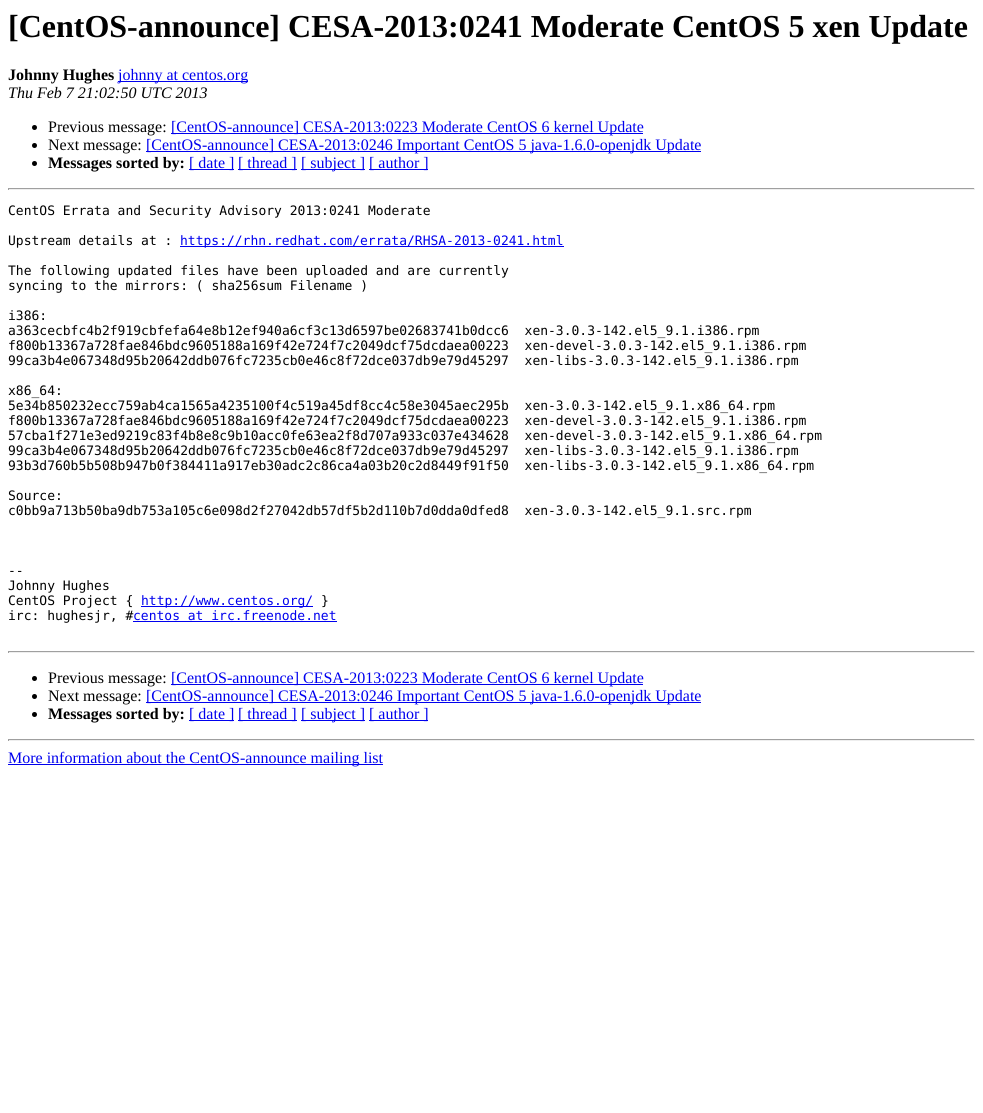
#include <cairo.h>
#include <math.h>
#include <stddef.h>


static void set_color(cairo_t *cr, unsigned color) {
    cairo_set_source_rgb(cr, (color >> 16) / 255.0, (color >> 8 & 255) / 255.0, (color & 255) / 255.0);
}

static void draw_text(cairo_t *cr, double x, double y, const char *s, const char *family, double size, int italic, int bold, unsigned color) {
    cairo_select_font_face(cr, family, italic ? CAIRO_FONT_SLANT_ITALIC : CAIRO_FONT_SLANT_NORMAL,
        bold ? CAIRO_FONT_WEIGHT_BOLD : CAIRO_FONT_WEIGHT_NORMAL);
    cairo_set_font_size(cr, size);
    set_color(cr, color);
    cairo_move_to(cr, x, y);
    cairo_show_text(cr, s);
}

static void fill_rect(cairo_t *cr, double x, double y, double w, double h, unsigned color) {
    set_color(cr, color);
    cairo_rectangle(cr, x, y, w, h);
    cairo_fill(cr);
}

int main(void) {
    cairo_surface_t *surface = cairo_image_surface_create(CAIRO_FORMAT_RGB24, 983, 1113);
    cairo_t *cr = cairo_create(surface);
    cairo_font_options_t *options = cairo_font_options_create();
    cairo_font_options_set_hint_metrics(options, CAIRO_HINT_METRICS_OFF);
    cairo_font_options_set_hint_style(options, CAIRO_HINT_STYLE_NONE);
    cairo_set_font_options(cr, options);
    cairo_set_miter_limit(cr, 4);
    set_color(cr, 0xFFFFFF);
    cairo_paint(cr);
    draw_text(cr, 8, 37, "[CentOS-announce] CESA-2013:0241 Moderate CentOS 5 xen Update", "Liberation Serif", 32, 0, 1, 0x000000);
    draw_text(cr, 8, 80, "Johnny Hughes", "Liberation Serif", 16, 0, 1, 0x000000);
    fill_rect(cr, 118, 81, 130, 1, 0x0000EE);
    draw_text(cr, 118, 80, "johnny at centos.org", "Liberation Serif", 16, 0, 0, 0x0000EE);
    draw_text(cr, 8, 98, "Thu Feb 7 21:02:50 UTC 2013", "Liberation Serif", 16, 1, 0, 0x000000);
    cairo_new_path(cr);
    cairo_arc(cr, 34.5, 127.5, 2.5, 0, 2 * M_PI);
    cairo_fill(cr);
    draw_text(cr, 48, 132, "Previous message:", "Liberation Serif", 16, 0, 0, 0x000000);
    fill_rect(cr, 171, 133, 472, 1, 0x0000EE);
    draw_text(cr, 171, 132, "[CentOS-announce] CESA-2013:0223 Moderate CentOS 6 kernel Update", "Liberation Serif", 16, 0, 0, 0x0000EE);
    set_color(cr, 0x000000);
    cairo_new_path(cr);
    cairo_arc(cr, 34.5, 145.5, 2.5, 0, 2 * M_PI);
    cairo_fill(cr);
    draw_text(cr, 48, 150, "Next message:", "Liberation Serif", 16, 0, 0, 0x000000);
    fill_rect(cr, 146, 151, 555, 1, 0x0000EE);
    draw_text(cr, 146, 150, "[CentOS-announce] CESA-2013:0246 Important CentOS 5 java-1.6.0-openjdk Update", "Liberation Serif", 16, 0, 0, 0x0000EE);
    set_color(cr, 0x000000);
    cairo_new_path(cr);
    cairo_arc(cr, 34.5, 163.5, 2.5, 0, 2 * M_PI);
    cairo_fill(cr);
    draw_text(cr, 48, 168, "Messages sorted by:", "Liberation Serif", 16, 0, 1, 0x000000);
    fill_rect(cr, 189, 169, 45, 1, 0x0000EE);
    draw_text(cr, 189, 168, "[ date ]", "Liberation Serif", 16, 0, 0, 0x0000EE);
    fill_rect(cr, 238, 169, 59, 1, 0x0000EE);
    draw_text(cr, 238, 168, "[ thread ]", "Liberation Serif", 16, 0, 0, 0x0000EE);
    fill_rect(cr, 301, 169, 64, 1, 0x0000EE);
    draw_text(cr, 301, 168, "[ subject ]", "Liberation Serif", 16, 0, 0, 0x0000EE);
    fill_rect(cr, 369, 169, 59, 1, 0x0000EE);
    draw_text(cr, 369, 168, "[ author ]", "Liberation Serif", 16, 0, 0, 0x0000EE);
    fill_rect(cr, 8, 188, 967, 1, 0x9F9F9F);
    fill_rect(cr, 974, 188, 1, 2, 0xEEEEEE);
    fill_rect(cr, 8, 189, 967, 1, 0xEEEEEE);
    fill_rect(cr, 8, 188, 1, 2, 0x9F9F9F);
    draw_text(cr, 8, 215, "CentOS Errata and Security Advisory 2013:0241 Moderate", "DejaVu Sans Mono", 13, 0, 0, 0x000000);
    draw_text(cr, 8, 245, "Upstream details at :", "DejaVu Sans Mono", 13, 0, 0, 0x000000);
    fill_rect(cr, 180, 246, 384, 1, 0x0000EE);
    draw_text(cr, 180, 245, "https://rhn.redhat.com/errata/RHSA-2013-0241.html", "DejaVu Sans Mono", 13, 0, 0, 0x0000EE);
    draw_text(cr, 8, 275, "The following updated files have been uploaded and are currently", "DejaVu Sans Mono", 13, 0, 0, 0x000000);
    draw_text(cr, 8, 290, "syncing to the mirrors: ( sha256sum Filename )", "DejaVu Sans Mono", 13, 0, 0, 0x000000);
    draw_text(cr, 8, 320, "i386:", "DejaVu Sans Mono", 13, 0, 0, 0x000000);
    draw_text(cr, 8, 335, "a363cecbfc4b2f919cbfefa64e8b12ef940a6cf3c13d6597be02683741b0dcc6  xen-3.0.3-142.el5_9.1.i386.rpm", "DejaVu Sans Mono", 13, 0, 0, 0x000000);
    draw_text(cr, 8, 350, "f800b13367a728fae846bdc9605188a169f42e724f7c2049dcf75dcdaea00223  xen-devel-3.0.3-142.el5_9.1.i386.rpm", "DejaVu Sans Mono", 13, 0, 0, 0x000000);
    draw_text(cr, 8, 365, "99ca3b4e067348d95b20642ddb076fc7235cb0e46c8f72dce037db9e79d45297  xen-libs-3.0.3-142.el5_9.1.i386.rpm", "DejaVu Sans Mono", 13, 0, 0, 0x000000);
    draw_text(cr, 8, 395, "x86_64:", "DejaVu Sans Mono", 13, 0, 0, 0x000000);
    draw_text(cr, 8, 410, "5e34b850232ecc759ab4ca1565a4235100f4c519a45df8cc4c58e3045aec295b  xen-3.0.3-142.el5_9.1.x86_64.rpm", "DejaVu Sans Mono", 13, 0, 0, 0x000000);
    draw_text(cr, 8, 425, "f800b13367a728fae846bdc9605188a169f42e724f7c2049dcf75dcdaea00223  xen-devel-3.0.3-142.el5_9.1.i386.rpm", "DejaVu Sans Mono", 13, 0, 0, 0x000000);
    draw_text(cr, 8, 440, "57cba1f271e3ed9219c83f4b8e8c9b10acc0fe63ea2f8d707a933c037e434628  xen-devel-3.0.3-142.el5_9.1.x86_64.rpm", "DejaVu Sans Mono", 13, 0, 0, 0x000000);
    draw_text(cr, 8, 455, "99ca3b4e067348d95b20642ddb076fc7235cb0e46c8f72dce037db9e79d45297  xen-libs-3.0.3-142.el5_9.1.i386.rpm", "DejaVu Sans Mono", 13, 0, 0, 0x000000);
    draw_text(cr, 8, 470, "93b3d760b5b508b947b0f384411a917eb30adc2c86ca4a03b20c2d8449f91f50  xen-libs-3.0.3-142.el5_9.1.x86_64.rpm", "DejaVu Sans Mono", 13, 0, 0, 0x000000);
    draw_text(cr, 8, 500, "Source:", "DejaVu Sans Mono", 13, 0, 0, 0x000000);
    draw_text(cr, 8, 515, "c0bb9a713b50ba9db753a105c6e098d2f27042db57df5b2d110b7d0dda0dfed8  xen-3.0.3-142.el5_9.1.src.rpm", "DejaVu Sans Mono", 13, 0, 0, 0x000000);
    draw_text(cr, 8, 575, "--", "DejaVu Sans Mono", 13, 0, 0, 0x000000);
    draw_text(cr, 8, 590, "Johnny Hughes", "DejaVu Sans Mono", 13, 0, 0, 0x000000);
    draw_text(cr, 8, 605, "CentOS Project {", "DejaVu Sans Mono", 13, 0, 0, 0x000000);
    fill_rect(cr, 141, 606, 172, 1, 0x0000EE);
    draw_text(cr, 141, 605, "http://www.centos.org/", "DejaVu Sans Mono", 13, 0, 0, 0x0000EE);
    draw_text(cr, 321, 605, "}", "DejaVu Sans Mono", 13, 0, 0, 0x000000);
    draw_text(cr, 8, 620, "irc: hughesjr, #", "DejaVu Sans Mono", 13, 0, 0, 0x000000);
    draw_text(cr, 133, 620, "centos at irc.freenode.net", "DejaVu Sans Mono", 13, 0, 0, 0x0000EE);
    fill_rect(cr, 133, 621, 204, 1, 0x0000EE);
    fill_rect(cr, 8, 651, 967, 1, 0x9F9F9F);
    fill_rect(cr, 974, 651, 1, 2, 0xEEEEEE);
    fill_rect(cr, 8, 652, 967, 1, 0xEEEEEE);
    fill_rect(cr, 8, 651, 1, 2, 0x9F9F9F);
    set_color(cr, 0x000000);
    cairo_new_path(cr);
    cairo_arc(cr, 34.5, 678.5, 2.5, 0, 2 * M_PI);
    cairo_fill(cr);
    draw_text(cr, 48, 683, "Previous message:", "Liberation Serif", 16, 0, 0, 0x000000);
    fill_rect(cr, 171, 684, 472, 1, 0x0000EE);
    draw_text(cr, 171, 683, "[CentOS-announce] CESA-2013:0223 Moderate CentOS 6 kernel Update", "Liberation Serif", 16, 0, 0, 0x0000EE);
    set_color(cr, 0x000000);
    cairo_new_path(cr);
    cairo_arc(cr, 34.5, 696.5, 2.5, 0, 2 * M_PI);
    cairo_fill(cr);
    draw_text(cr, 48, 701, "Next message:", "Liberation Serif", 16, 0, 0, 0x000000);
    fill_rect(cr, 146, 702, 555, 1, 0x0000EE);
    draw_text(cr, 146, 701, "[CentOS-announce] CESA-2013:0246 Important CentOS 5 java-1.6.0-openjdk Update", "Liberation Serif", 16, 0, 0, 0x0000EE);
    set_color(cr, 0x000000);
    cairo_new_path(cr);
    cairo_arc(cr, 34.5, 714.5, 2.5, 0, 2 * M_PI);
    cairo_fill(cr);
    draw_text(cr, 48, 719, "Messages sorted by:", "Liberation Serif", 16, 0, 1, 0x000000);
    fill_rect(cr, 189, 720, 45, 1, 0x0000EE);
    draw_text(cr, 189, 719, "[ date ]", "Liberation Serif", 16, 0, 0, 0x0000EE);
    fill_rect(cr, 238, 720, 59, 1, 0x0000EE);
    draw_text(cr, 238, 719, "[ thread ]", "Liberation Serif", 16, 0, 0, 0x0000EE);
    fill_rect(cr, 301, 720, 64, 1, 0x0000EE);
    draw_text(cr, 301, 719, "[ subject ]", "Liberation Serif", 16, 0, 0, 0x0000EE);
    fill_rect(cr, 369, 720, 59, 1, 0x0000EE);
    draw_text(cr, 369, 719, "[ author ]", "Liberation Serif", 16, 0, 0, 0x0000EE);
    fill_rect(cr, 8, 739, 967, 1, 0x9F9F9F);
    fill_rect(cr, 974, 739, 1, 2, 0xEEEEEE);
    fill_rect(cr, 8, 740, 967, 1, 0xEEEEEE);
    fill_rect(cr, 8, 739, 1, 2, 0x9F9F9F);
    fill_rect(cr, 8, 764, 375, 1, 0x0000EE);
    draw_text(cr, 8, 763, "More information about the CentOS-announce mailing list", "Liberation Serif", 16, 0, 0, 0x0000EE);
    cairo_surface_write_to_png(surface, "output.png");
    cairo_font_options_destroy(options);
    cairo_destroy(cr);
    cairo_surface_destroy(surface);
    return 0;
}
